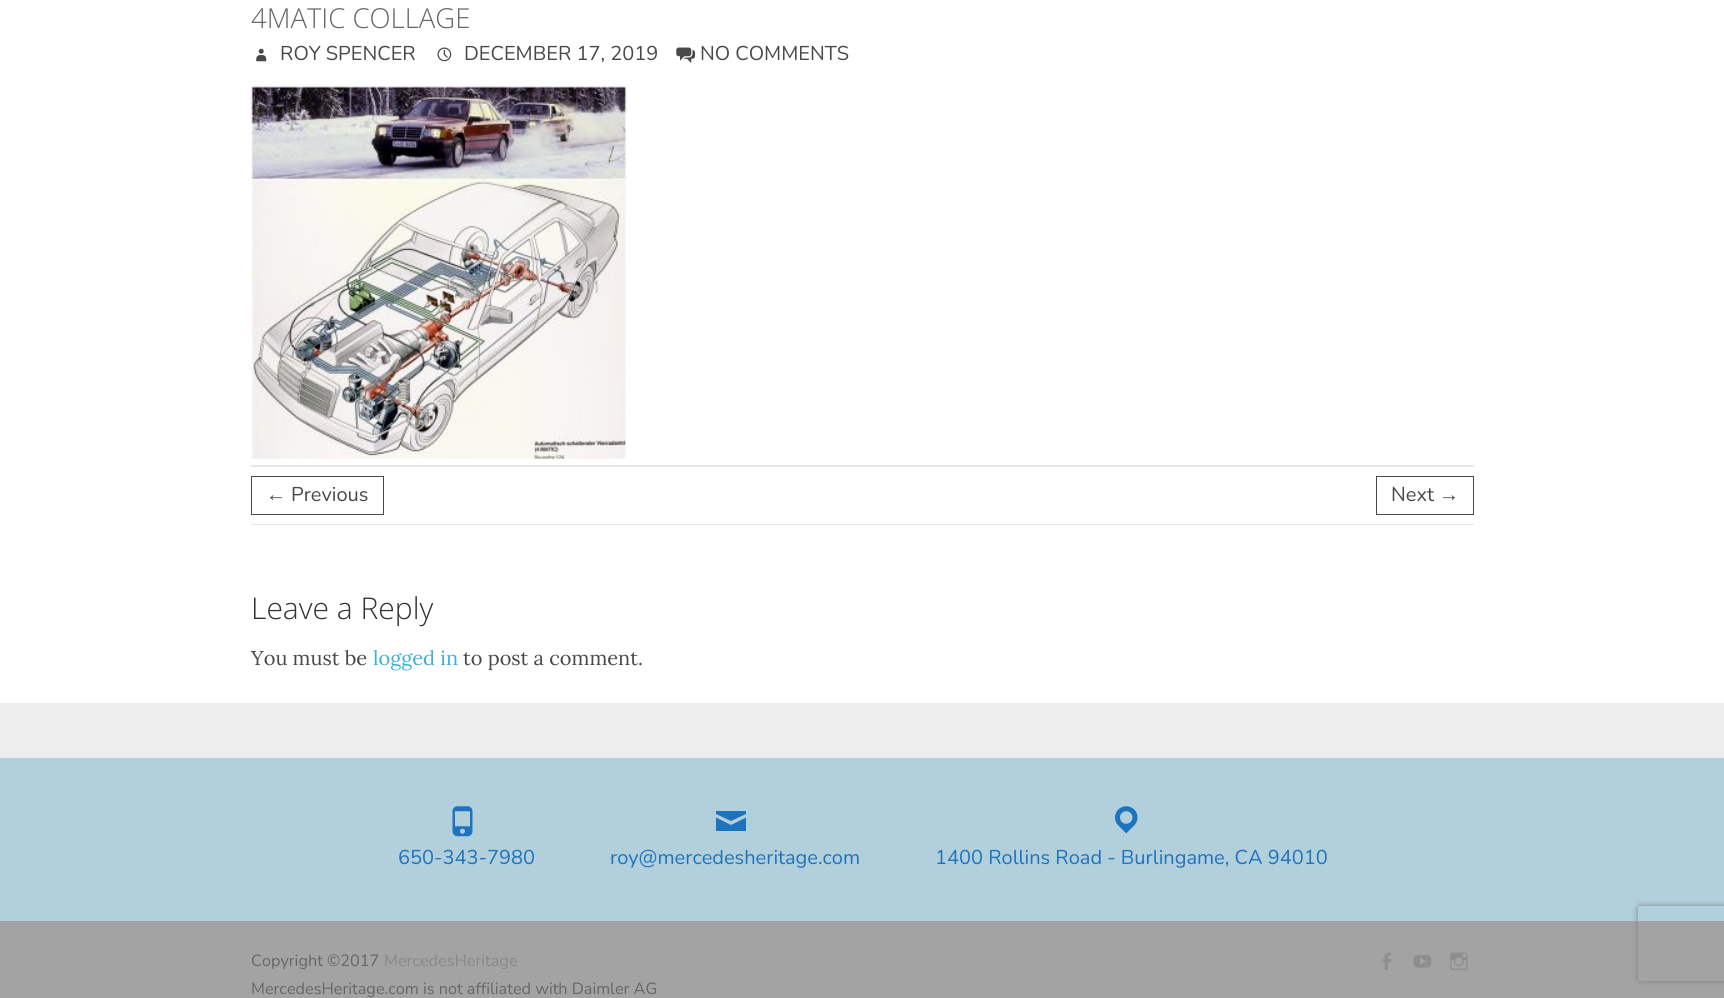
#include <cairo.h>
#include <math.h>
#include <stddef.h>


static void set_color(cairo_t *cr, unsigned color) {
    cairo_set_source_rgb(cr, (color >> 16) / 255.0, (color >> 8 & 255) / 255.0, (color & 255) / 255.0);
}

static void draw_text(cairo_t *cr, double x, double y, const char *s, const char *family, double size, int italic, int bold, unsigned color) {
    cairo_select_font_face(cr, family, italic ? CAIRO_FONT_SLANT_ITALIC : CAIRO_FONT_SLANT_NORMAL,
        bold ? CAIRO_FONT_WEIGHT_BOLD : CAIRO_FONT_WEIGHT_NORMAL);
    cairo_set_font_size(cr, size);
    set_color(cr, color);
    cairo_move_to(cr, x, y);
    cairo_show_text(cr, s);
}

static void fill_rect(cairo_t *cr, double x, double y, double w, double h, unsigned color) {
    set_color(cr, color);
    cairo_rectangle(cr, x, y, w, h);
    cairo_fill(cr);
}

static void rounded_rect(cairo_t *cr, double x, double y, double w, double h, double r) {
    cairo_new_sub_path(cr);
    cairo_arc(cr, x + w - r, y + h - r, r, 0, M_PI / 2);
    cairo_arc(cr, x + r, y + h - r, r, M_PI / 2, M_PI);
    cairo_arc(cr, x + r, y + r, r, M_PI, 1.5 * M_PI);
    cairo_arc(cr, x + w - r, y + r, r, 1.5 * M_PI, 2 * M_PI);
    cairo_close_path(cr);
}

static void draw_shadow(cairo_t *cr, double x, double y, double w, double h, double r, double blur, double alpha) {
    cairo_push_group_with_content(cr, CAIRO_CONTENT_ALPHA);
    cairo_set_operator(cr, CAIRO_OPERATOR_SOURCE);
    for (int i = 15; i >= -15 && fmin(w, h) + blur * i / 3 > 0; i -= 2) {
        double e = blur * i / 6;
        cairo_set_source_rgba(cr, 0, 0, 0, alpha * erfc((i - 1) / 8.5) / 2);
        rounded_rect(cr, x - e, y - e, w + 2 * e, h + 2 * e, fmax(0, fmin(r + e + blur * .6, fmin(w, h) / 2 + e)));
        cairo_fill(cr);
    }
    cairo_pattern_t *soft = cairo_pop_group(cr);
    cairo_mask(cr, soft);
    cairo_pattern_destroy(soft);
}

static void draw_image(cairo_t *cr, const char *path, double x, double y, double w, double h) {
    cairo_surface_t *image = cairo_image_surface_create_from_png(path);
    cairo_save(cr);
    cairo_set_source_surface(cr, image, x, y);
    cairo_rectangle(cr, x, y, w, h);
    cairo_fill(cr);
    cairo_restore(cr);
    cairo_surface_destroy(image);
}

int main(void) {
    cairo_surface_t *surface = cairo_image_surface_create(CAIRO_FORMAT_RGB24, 1724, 998);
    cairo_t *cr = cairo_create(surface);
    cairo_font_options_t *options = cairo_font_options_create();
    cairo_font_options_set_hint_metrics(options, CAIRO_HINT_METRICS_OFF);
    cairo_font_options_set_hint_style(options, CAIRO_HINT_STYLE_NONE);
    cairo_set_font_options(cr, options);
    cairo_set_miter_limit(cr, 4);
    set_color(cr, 0xEDEDED);
    cairo_paint(cr);
    fill_rect(cr, 0, 0, 1724, 703, 0xFFFFFF);
    draw_text(cr, 251, 28, "4MATIC COLLAGE", "Open Sans Light", 27.5, 0, 0, 0x666666);
    draw_image(cr, "assets/img1.png", 256, 48, 11, 14);
    draw_text(cr, 280, 60, "ROY SPENCER", "Nunito ExtraLight", 20, 0, 0, 0x494949);
    draw_image(cr, "assets/img2.png", 437, 47, 15, 15);
    draw_text(cr, 464, 60, "DECEMBER 17, 2019", "Nunito ExtraLight", 20, 0, 0, 0x494949);
    draw_image(cr, "assets/img3.png", 676, 47, 19, 16);
    draw_text(cr, 700, 60, "NO COMMENTS", "Nunito ExtraLight", 20, 0, 0, 0x494949);
    draw_image(cr, "assets/img4.png", 251, 86, 376, 373);
    fill_rect(cr, 251, 465, 1223, 2, 0xE6E6E6);
    fill_rect(cr, 251, 524, 1223, 1, 0xE6E6E6);
    cairo_rectangle(cr, 251.5, 476.5, 132, 38);
    set_color(cr, 0x494949);
    cairo_set_line_width(cr, 1);
    cairo_stroke(cr);
    draw_text(cr, 266, 501, "←", "Liberation Sans", 20, 0, 0, 0x494949);
    draw_text(cr, 291, 501, "Previous", "Nunito ExtraLight", 20, 0, 0, 0x494949);
    cairo_rectangle(cr, 1376.5, 476.5, 97, 38);
    cairo_stroke(cr);
    draw_text(cr, 1391, 501, "Next", "Nunito ExtraLight", 20, 0, 0, 0x494949);
    draw_text(cr, 1439, 501, "→", "Liberation Sans", 20, 0, 0, 0x494949);
    draw_text(cr, 251, 619, "Leave a Reply", "Open Sans Light", 30, 0, 0, 0x333333);
    draw_text(cr, 251, 665, "You must be", "Lora", 20, 0, 0, 0x494949);
    draw_text(cr, 373, 665, "logged in", "Lora", 20, 0, 0, 0x3AB0DB);
    draw_text(cr, 463, 665, "to post a comment.", "Lora", 20, 0, 0, 0x494949);
    fill_rect(cr, 0, 758, 1724, 163, 0xB1D0DC);
    draw_image(cr, "assets/img5.png", 452, 806, 21, 31);
    draw_text(cr, 398, 864, "650-343-7980", "Nunito ExtraLight", 20, 0, 0, 0x1E73BE);
    cairo_new_path(cr);
    cairo_move_to(cr, 716, 811);
    cairo_line_to(cr, 746, 811);
    cairo_line_to(cr, 746, 814);
    cairo_line_to(cr, 731, 821);
    cairo_line_to(cr, 716, 814);
    cairo_close_path(cr);
    cairo_move_to(cr, 716, 817.5);
    cairo_line_to(cr, 731, 825);
    cairo_line_to(cr, 746, 817.5);
    cairo_line_to(cr, 746, 831);
    cairo_line_to(cr, 716, 831);
    cairo_close_path(cr);
    cairo_fill(cr);
    draw_text(cr, 610, 864, "roy@mercedesheritage.com", "Nunito ExtraLight", 20, 0, 0, 0x1E73BE);
    draw_image(cr, "assets/img6.png", 1115, 806, 23, 28);
    draw_text(cr, 935, 864, "1400 Rollins Road - Burlingame, CA 94010", "Nunito ExtraLight", 20, 0, 0, 0x1E73BE);
    fill_rect(cr, 0, 921, 1724, 77, 0xA3A3A3);
    draw_text(cr, 251, 966, "Copyright ©2017", "Nunito ExtraLight", 16.25, 0, 0, 0x666666);
    draw_text(cr, 384, 966, "MercedesHeritage", "Nunito ExtraLight", 16.25, 0, 0, 0x888888);
    draw_image(cr, "assets/img7.png", 1382, 952, 9, 18);
    draw_image(cr, "assets/img8.png", 1413, 955, 19, 13);
    draw_image(cr, "assets/img9.png", 1450, 952, 18, 18);
    draw_text(cr, 251, 994, "MercedesHeritage.com is not affiliated with Daimler AG", "Nunito ExtraLight", 16.25, 0, 0, 0x666666);
    cairo_save(cr);
    cairo_set_fill_rule(cr, CAIRO_FILL_RULE_EVEN_ODD);
    cairo_new_path(cr);
    cairo_move_to(cr, 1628, 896);
    cairo_line_to(cr, 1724, 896);
    cairo_line_to(cr, 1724, 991);
    cairo_line_to(cr, 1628, 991);
    cairo_close_path(cr);
    cairo_move_to(cr, 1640.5, 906);
    cairo_line_to(cr, 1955.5, 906);
    cairo_curve_to(cr, 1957, 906, 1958, 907, 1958, 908.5);
    cairo_line_to(cr, 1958, 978.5);
    cairo_curve_to(cr, 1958, 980, 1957, 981, 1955.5, 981);
    cairo_line_to(cr, 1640.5, 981);
    cairo_curve_to(cr, 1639, 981, 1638, 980, 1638, 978.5);
    cairo_line_to(cr, 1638, 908.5);
    cairo_curve_to(cr, 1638, 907, 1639, 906, 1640.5, 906);
    cairo_close_path(cr);
    cairo_clip(cr);
    set_color(cr, 0x808080);
    draw_shadow(cr, 1638, 906, 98, 75, 2.5, 3, 1);
    cairo_restore(cr);
    cairo_surface_write_to_png(surface, "output.png");
    cairo_font_options_destroy(options);
    cairo_destroy(cr);
    cairo_surface_destroy(surface);
    return 0;
}
